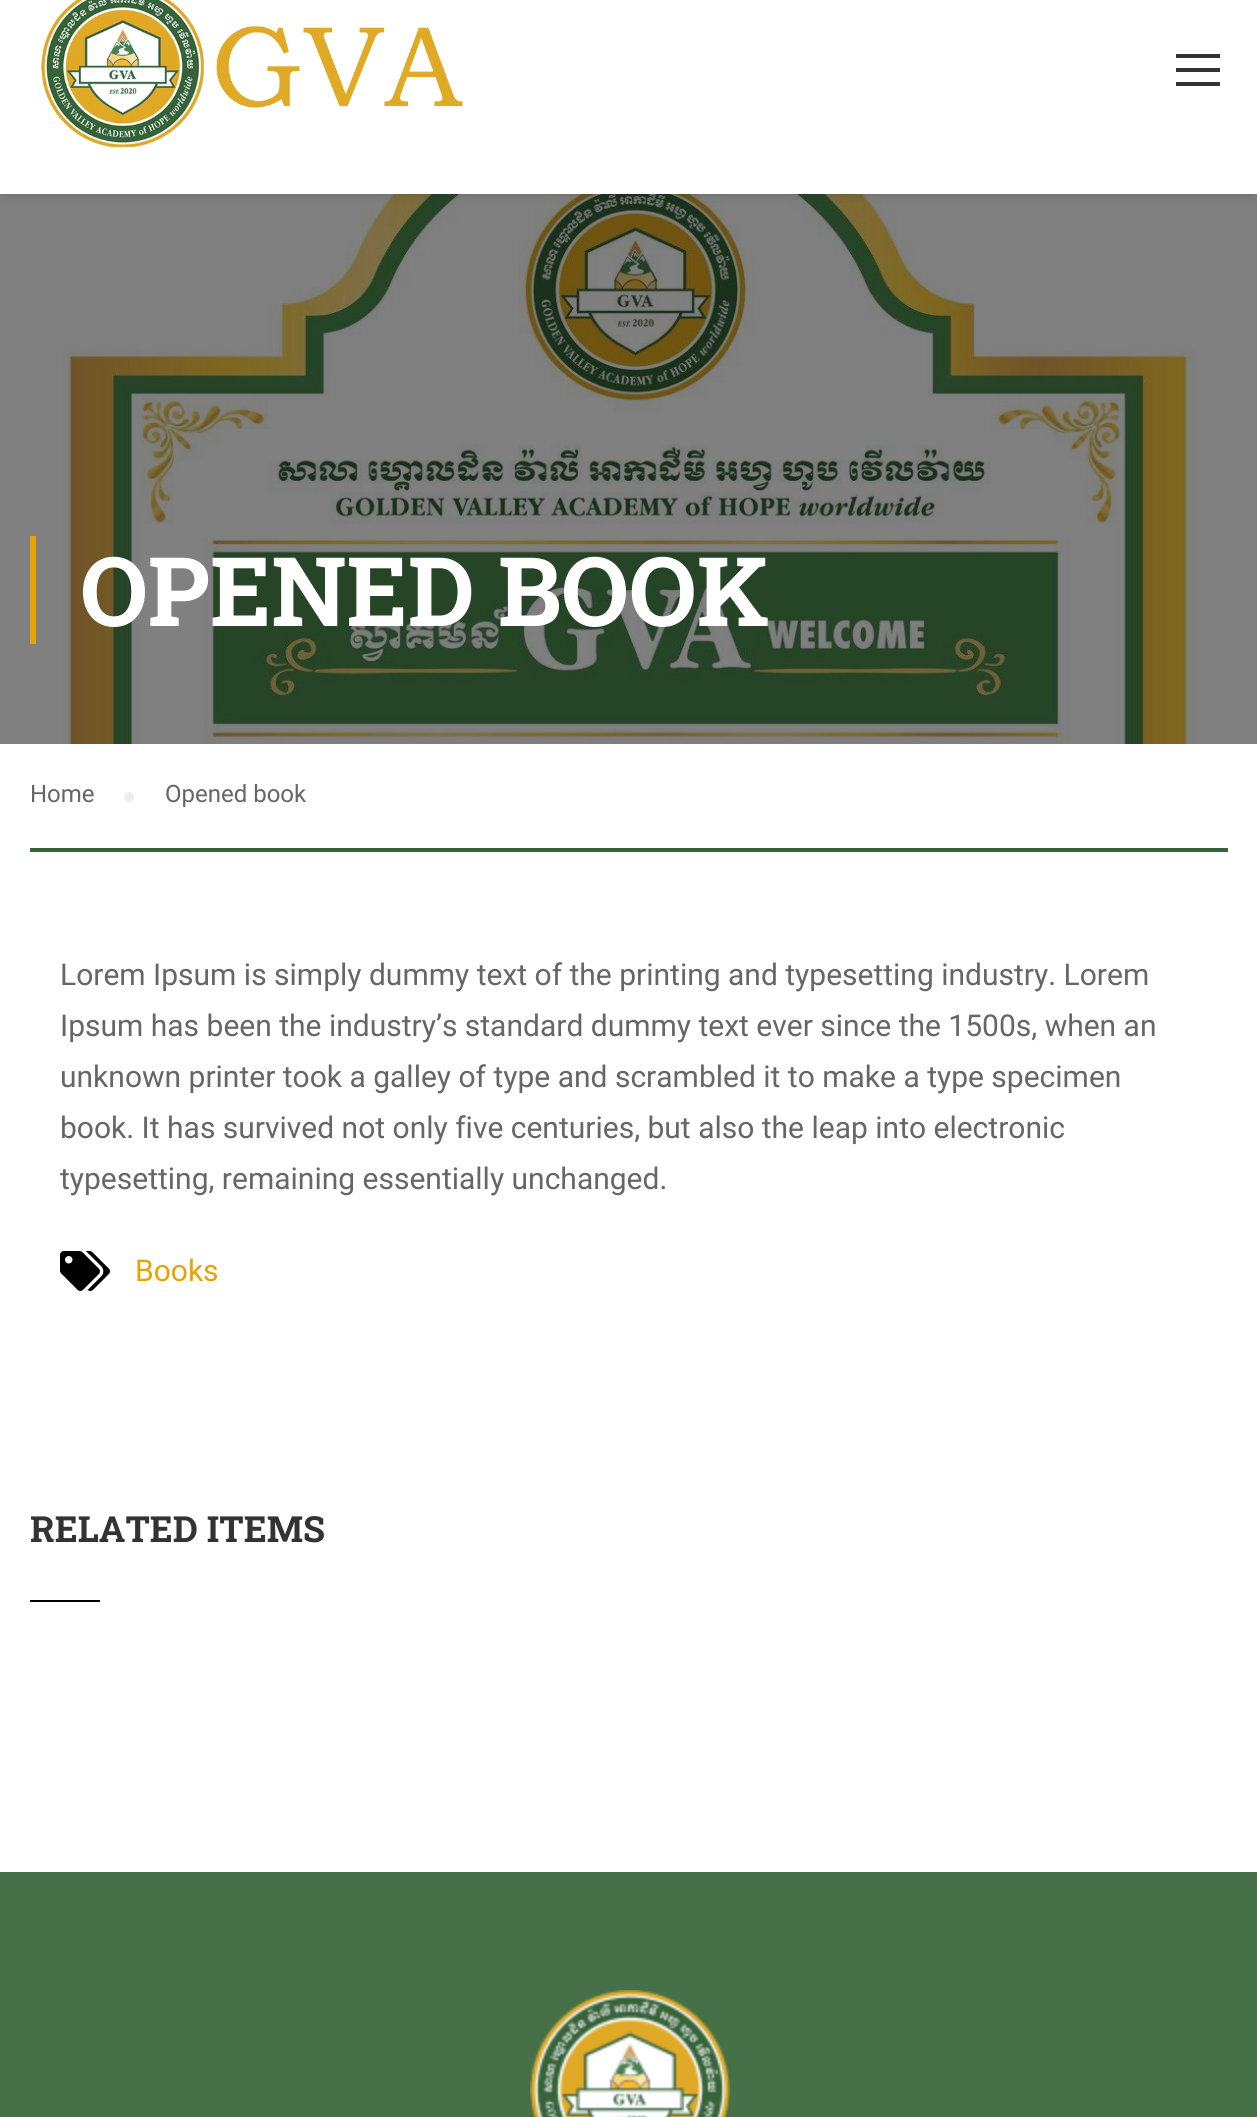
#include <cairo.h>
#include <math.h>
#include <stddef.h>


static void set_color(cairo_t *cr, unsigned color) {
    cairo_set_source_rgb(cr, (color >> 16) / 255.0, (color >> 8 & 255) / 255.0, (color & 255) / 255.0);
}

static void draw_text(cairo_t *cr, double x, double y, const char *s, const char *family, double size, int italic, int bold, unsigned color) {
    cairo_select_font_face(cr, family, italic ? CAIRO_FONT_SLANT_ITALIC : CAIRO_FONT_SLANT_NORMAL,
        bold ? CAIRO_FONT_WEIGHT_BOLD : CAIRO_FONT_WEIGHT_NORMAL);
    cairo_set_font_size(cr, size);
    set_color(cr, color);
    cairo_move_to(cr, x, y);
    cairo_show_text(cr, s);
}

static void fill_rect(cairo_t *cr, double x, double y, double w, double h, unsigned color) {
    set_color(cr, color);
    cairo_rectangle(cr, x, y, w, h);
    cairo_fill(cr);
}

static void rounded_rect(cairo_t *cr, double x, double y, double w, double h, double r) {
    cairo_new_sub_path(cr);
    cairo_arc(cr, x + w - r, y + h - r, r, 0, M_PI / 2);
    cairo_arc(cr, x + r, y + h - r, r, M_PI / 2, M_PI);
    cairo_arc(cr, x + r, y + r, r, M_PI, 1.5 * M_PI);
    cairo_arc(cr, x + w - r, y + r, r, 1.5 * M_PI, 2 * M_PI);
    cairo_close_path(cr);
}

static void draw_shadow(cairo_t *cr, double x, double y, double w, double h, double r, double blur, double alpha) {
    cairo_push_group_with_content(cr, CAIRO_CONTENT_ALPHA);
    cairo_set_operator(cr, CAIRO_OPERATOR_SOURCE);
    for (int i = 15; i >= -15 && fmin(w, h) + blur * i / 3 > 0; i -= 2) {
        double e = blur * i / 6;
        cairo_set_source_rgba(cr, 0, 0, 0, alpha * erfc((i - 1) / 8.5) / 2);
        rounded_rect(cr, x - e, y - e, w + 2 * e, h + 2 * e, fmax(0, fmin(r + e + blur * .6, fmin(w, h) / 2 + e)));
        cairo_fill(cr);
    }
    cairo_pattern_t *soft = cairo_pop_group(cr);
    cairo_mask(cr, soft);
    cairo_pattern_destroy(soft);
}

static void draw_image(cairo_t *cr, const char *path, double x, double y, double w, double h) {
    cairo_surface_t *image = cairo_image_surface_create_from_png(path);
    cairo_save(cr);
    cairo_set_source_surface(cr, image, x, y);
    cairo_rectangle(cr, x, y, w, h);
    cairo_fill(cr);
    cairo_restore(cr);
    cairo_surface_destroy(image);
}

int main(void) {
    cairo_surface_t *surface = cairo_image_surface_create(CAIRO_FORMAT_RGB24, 1257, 2117);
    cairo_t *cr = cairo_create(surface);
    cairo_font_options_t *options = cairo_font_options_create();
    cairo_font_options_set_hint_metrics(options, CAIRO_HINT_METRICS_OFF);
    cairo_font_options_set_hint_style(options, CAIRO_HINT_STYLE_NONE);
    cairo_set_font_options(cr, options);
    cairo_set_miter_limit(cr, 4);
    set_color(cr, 0xFFFFFF);
    cairo_paint(cr);
    draw_image(cr, "assets/img2.png", 0, 194, 1257, 550);
    set_color(cr, 0x2A2A2A);
    draw_shadow(cr, 4, -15, 1250, 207, 0, 5, 0.4);
    fill_rect(cr, 0, 0, 1257, 194, 0xFFFFFF);
    draw_image(cr, "assets/img1.png", 41, 0, 422, 148);
    fill_rect(cr, 1176, 54, 44, 4, 0x333333);
    fill_rect(cr, 1176, 68, 44, 4, 0x333333);
    fill_rect(cr, 1176, 82, 44, 4, 0x333333);
    fill_rect(cr, 30, 536, 6, 108, 0xE6A303);
    draw_text(cr, 80, 626, "OPENED BOOK", "Roboto Slab", 96, 0, 1, 0xFFFFFF);
    fill_rect(cr, 30, 848, 1198, 4, 0x366338);
    draw_text(cr, 30, 802, "Home", "Roboto", 24, 0, 0, 0x666666);
    set_color(cr, 0xEEEEEE);
    cairo_new_path(cr);
    cairo_arc(cr, 129, 797, 5, 0, 2 * M_PI);
    cairo_fill(cr);
    draw_text(cr, 165, 802, "Opened book", "Roboto", 24, 0, 0, 0x666666);
    draw_text(cr, 60, 985, "Lorem Ipsum is simply dummy text of the printing and typesetting industry. Lorem", "Roboto", 30, 0, 0, 0x666666);
    draw_text(cr, 60, 1036, "Ipsum has been the industry’s standard dummy text ever since the 1500s, when an", "Roboto", 30, 0, 0, 0x666666);
    draw_text(cr, 60, 1087, "unknown printer took a galley of type and scrambled it to make a type specimen", "Roboto", 30, 0, 0, 0x666666);
    draw_text(cr, 60, 1138, "book. It has survived not only five centuries, but also the leap into electronic", "Roboto", 30, 0, 0, 0x666666);
    draw_text(cr, 60, 1189, "typesetting, remaining essentially unchanged.", "Roboto", 30, 0, 0, 0x666666);
    draw_image(cr, "assets/img3.png", 60, 1251, 50, 40);
    draw_text(cr, 135, 1281, "Books", "Roboto", 30, 0, 0, 0xE6A303);
    draw_text(cr, 30, 1542, "RELATED ITEMS", "Roboto Slab", 36, 0, 1, 0x333333);
    fill_rect(cr, 30, 1600, 70, 2, 0x000000);
    fill_rect(cr, 0, 1872, 1257, 245, 0x467048);
    draw_image(cr, "assets/img4.png", 530, 1990, 200, 127);
    cairo_surface_write_to_png(surface, "output.png");
    cairo_font_options_destroy(options);
    cairo_destroy(cr);
    cairo_surface_destroy(surface);
    return 0;
}
